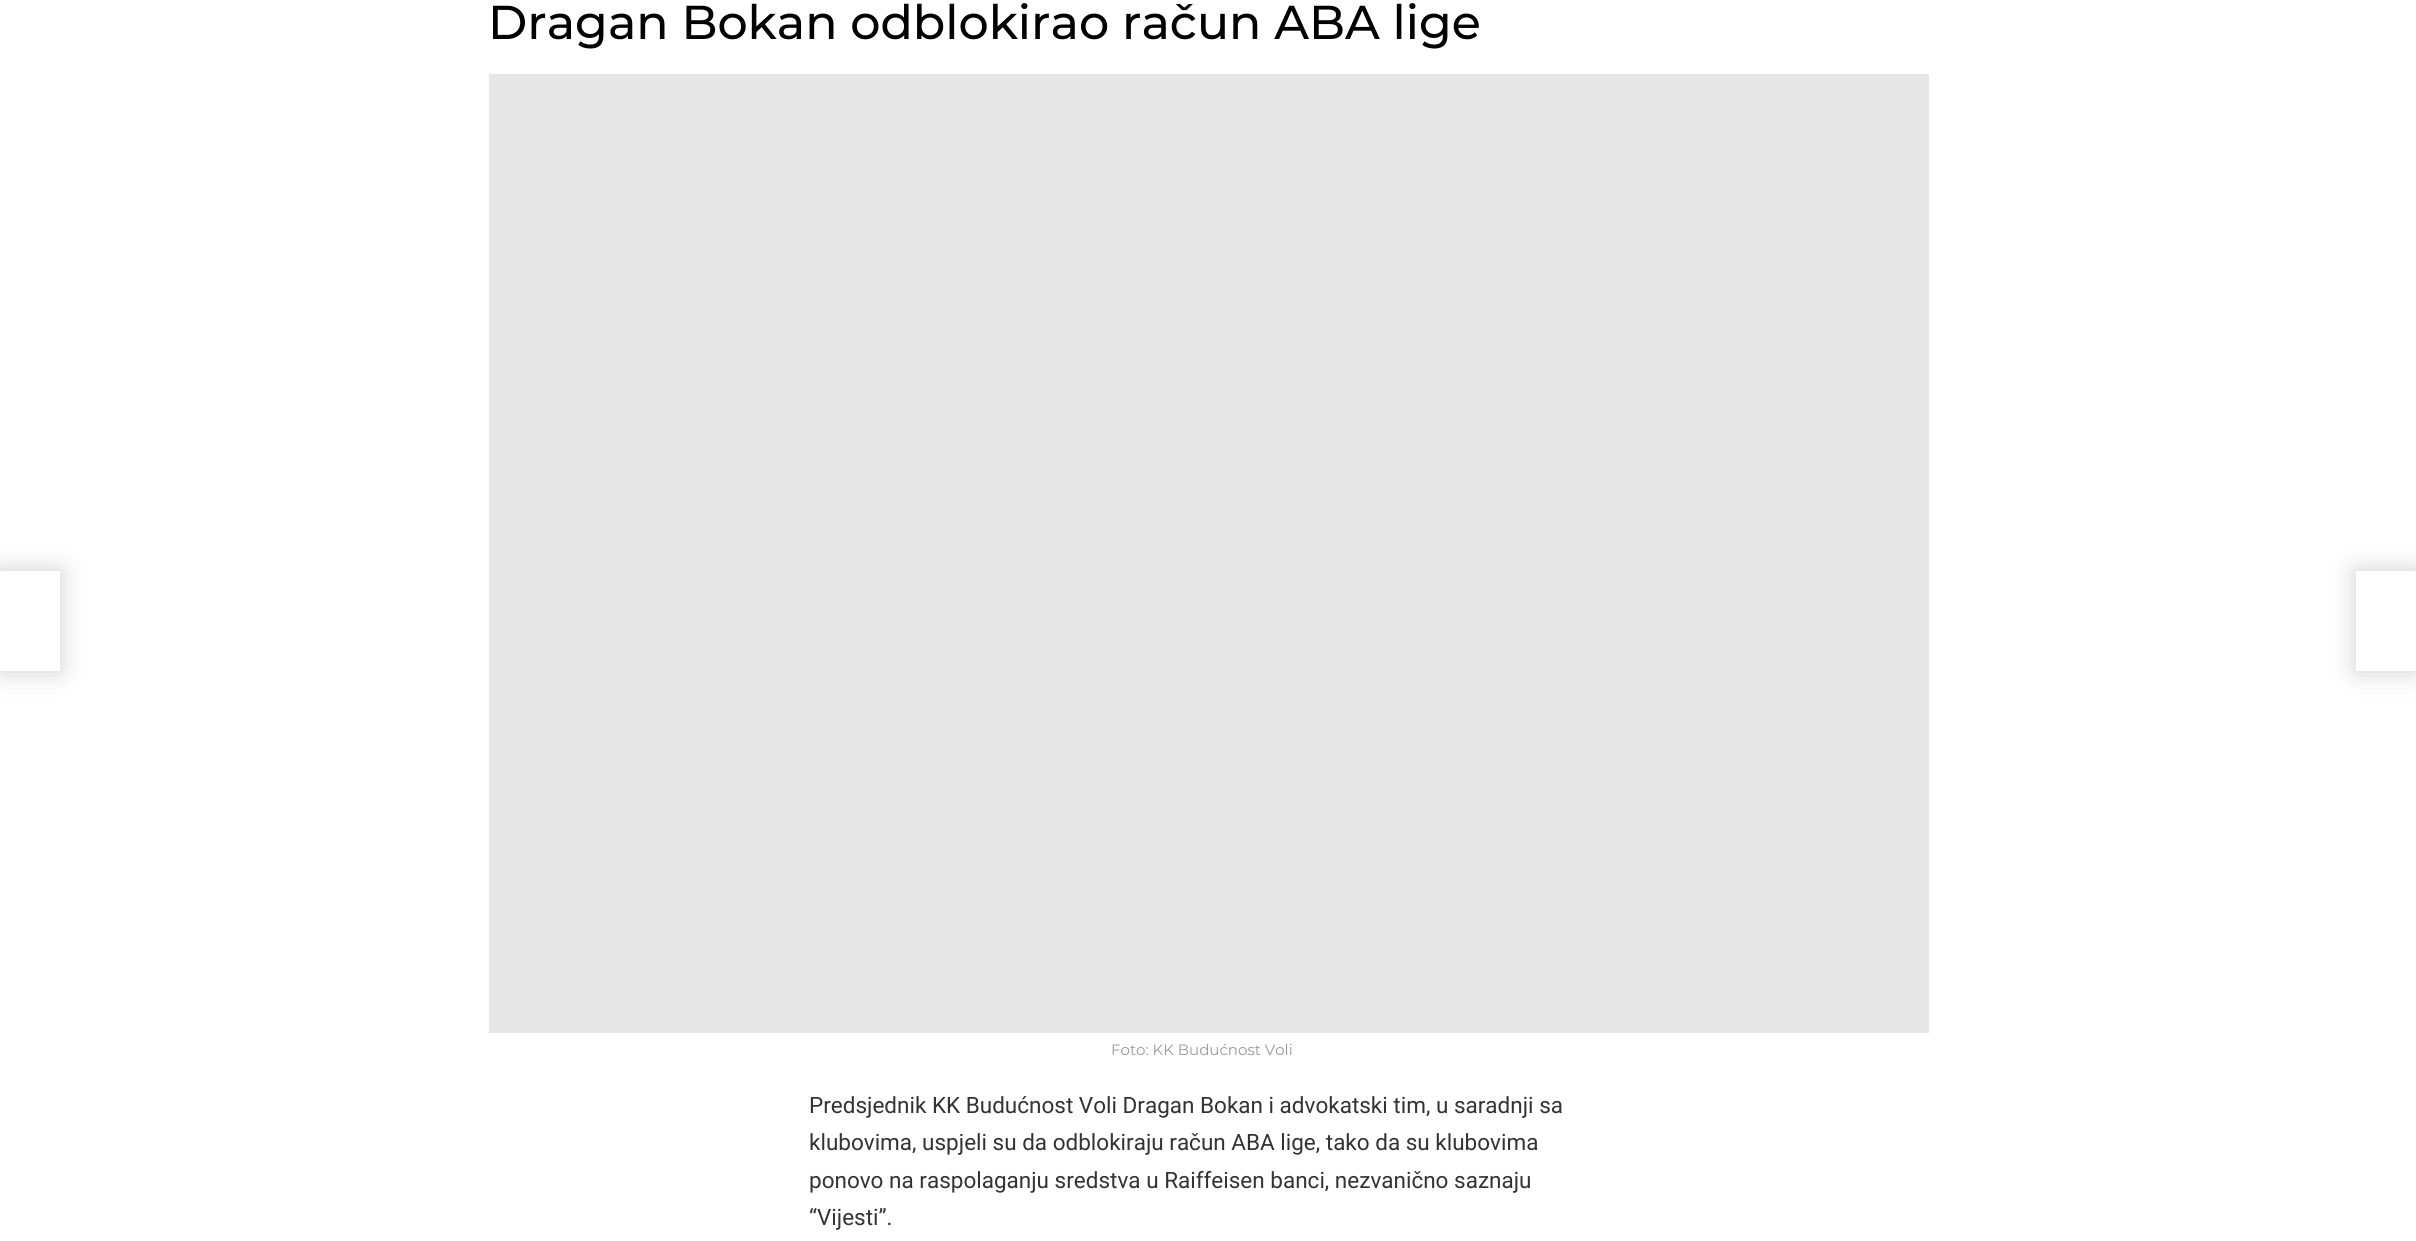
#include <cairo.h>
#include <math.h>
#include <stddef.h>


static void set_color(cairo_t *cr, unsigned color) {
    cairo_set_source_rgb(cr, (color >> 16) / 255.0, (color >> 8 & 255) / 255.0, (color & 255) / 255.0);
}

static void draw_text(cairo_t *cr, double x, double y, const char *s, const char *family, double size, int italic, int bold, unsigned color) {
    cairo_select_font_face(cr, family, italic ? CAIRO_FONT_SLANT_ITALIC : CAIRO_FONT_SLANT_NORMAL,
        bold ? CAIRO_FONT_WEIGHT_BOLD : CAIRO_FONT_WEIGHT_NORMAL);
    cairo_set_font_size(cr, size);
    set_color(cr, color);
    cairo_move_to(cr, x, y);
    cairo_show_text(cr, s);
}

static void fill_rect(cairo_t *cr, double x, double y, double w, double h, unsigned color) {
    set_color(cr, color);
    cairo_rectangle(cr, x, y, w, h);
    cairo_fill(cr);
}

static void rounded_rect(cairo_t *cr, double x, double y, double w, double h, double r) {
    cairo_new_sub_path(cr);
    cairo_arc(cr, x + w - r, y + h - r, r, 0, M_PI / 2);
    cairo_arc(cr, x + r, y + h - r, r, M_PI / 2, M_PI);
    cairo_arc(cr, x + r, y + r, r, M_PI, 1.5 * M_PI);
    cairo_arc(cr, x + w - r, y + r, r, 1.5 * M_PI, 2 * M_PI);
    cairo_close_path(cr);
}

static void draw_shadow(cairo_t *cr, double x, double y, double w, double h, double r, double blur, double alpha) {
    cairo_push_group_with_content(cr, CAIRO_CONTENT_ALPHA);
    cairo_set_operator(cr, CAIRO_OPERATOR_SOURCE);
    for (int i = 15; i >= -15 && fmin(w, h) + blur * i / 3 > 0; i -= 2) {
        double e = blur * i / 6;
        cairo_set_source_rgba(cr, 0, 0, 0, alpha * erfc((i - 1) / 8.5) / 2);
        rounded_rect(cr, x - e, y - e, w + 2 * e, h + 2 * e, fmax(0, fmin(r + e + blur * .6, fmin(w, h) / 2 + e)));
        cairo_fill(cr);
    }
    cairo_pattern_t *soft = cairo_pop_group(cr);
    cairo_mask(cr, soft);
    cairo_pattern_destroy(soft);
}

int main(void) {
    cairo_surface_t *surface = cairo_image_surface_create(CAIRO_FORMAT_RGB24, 2416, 1241);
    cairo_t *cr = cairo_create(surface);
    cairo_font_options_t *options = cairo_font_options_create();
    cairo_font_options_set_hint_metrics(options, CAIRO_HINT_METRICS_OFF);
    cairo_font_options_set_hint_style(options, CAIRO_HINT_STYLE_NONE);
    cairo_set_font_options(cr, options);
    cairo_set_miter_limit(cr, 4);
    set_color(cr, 0xFFFFFF);
    cairo_paint(cr);
    set_color(cr, 0x000000);
    draw_shadow(cr, 0, 571, 60, 100, 0, 12.5, 0.2);
    fill_rect(cr, 0, 571, 60, 100, 0xFFFFFF);
    draw_text(cr, 488, 39, "Dragan Bokan odblokirao račun ABA lige", "Montserrat Medium", 47.5, 0, 0, 0x000000);
    fill_rect(cr, 489, 74, 1440, 959, 0xE6E6E6);
    draw_text(cr, 1111, 1055, "Foto: KK Budućnost Voli", "Montserrat", 15, 0, 0, 0x999999);
    draw_text(cr, 809, 1113, "Predsjednik KK Budućnost Voli Dragan Bokan i advokatski tim, u saradnji sa", "Roboto", 22.5, 0, 0, 0x333333);
    draw_text(cr, 809, 1150, "klubovima, uspjeli su da odblokiraju račun ABA lige, tako da su klubovima", "Roboto", 22.5, 0, 0, 0x333333);
    draw_text(cr, 809, 1188, "ponovo na raspolaganju sredstva u Raiffeisen banci, nezvanično saznaju", "Roboto", 22.5, 0, 0, 0x333333);
    draw_text(cr, 809, 1225, "“Vijesti”.", "Roboto", 22.5, 0, 0, 0x333333);
    set_color(cr, 0x000000);
    draw_shadow(cr, 2356, 571, 60, 100, 0, 12.5, 0.2);
    fill_rect(cr, 2356, 571, 60, 100, 0xFFFFFF);
    cairo_surface_write_to_png(surface, "output.png");
    cairo_font_options_destroy(options);
    cairo_destroy(cr);
    cairo_surface_destroy(surface);
    return 0;
}
